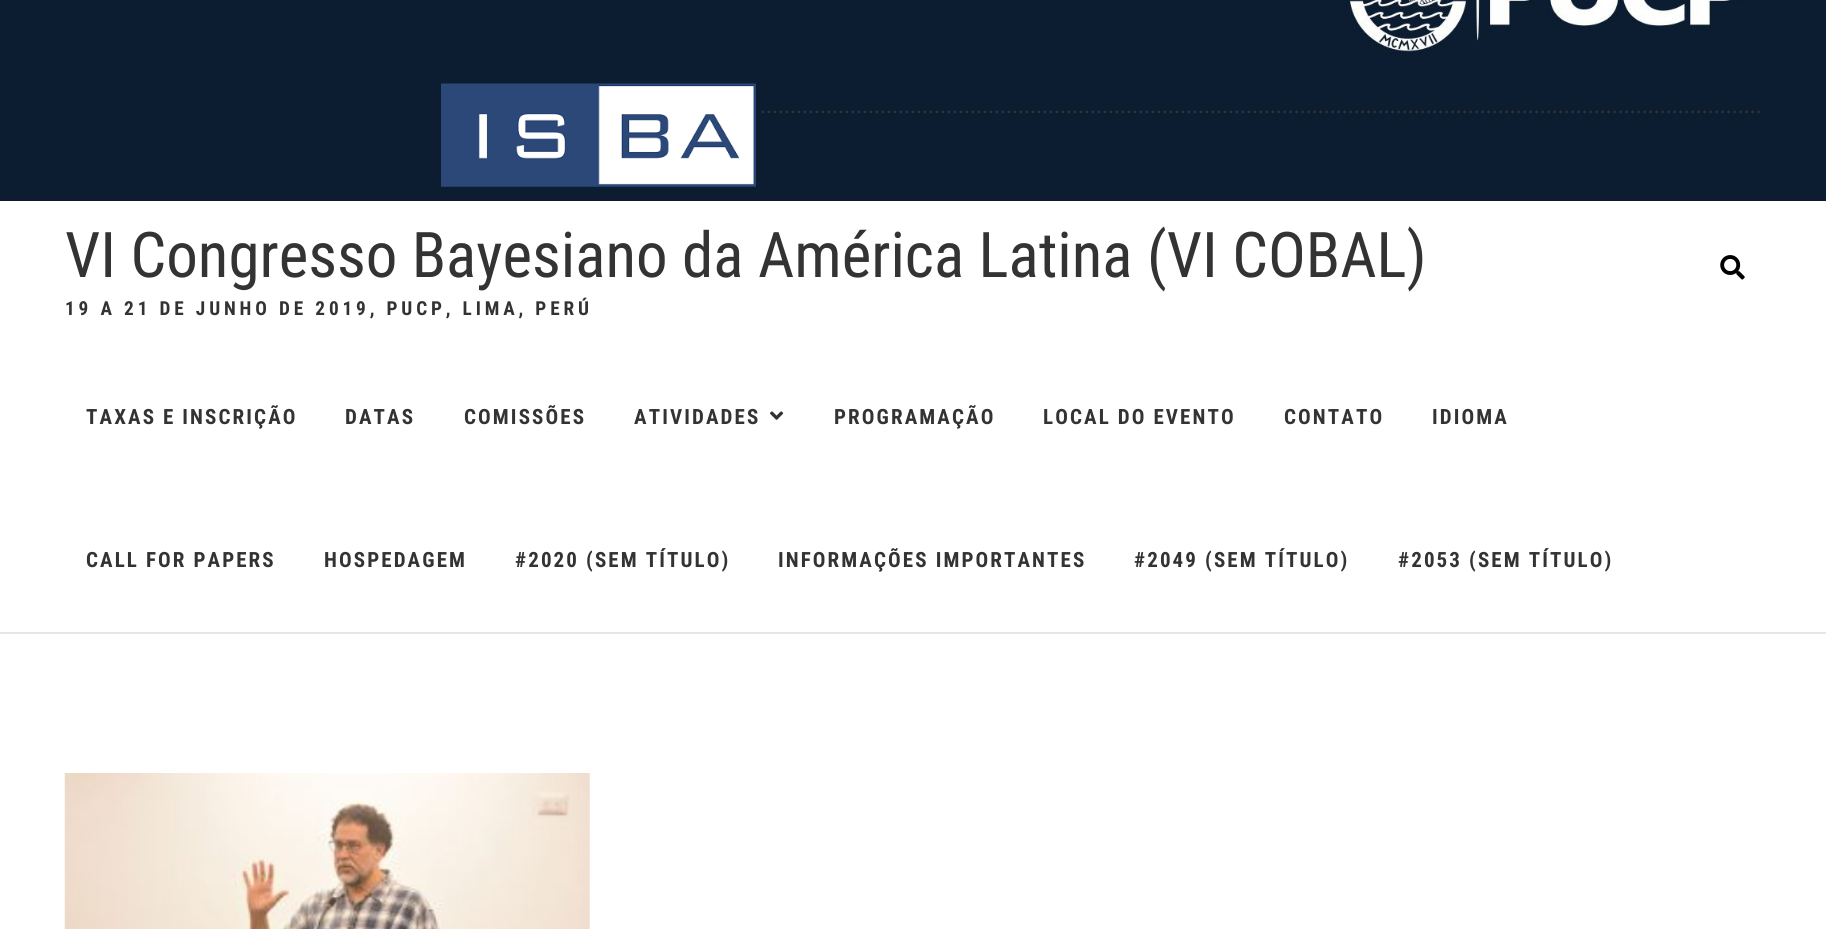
#include <cairo.h>
#include <math.h>
#include <stddef.h>


static void set_color(cairo_t *cr, unsigned color) {
    cairo_set_source_rgb(cr, (color >> 16) / 255.0, (color >> 8 & 255) / 255.0, (color & 255) / 255.0);
}

static void draw_text(cairo_t *cr, double x, double y, const char *s, const char *family, double size, int italic, int bold, unsigned color) {
    cairo_select_font_face(cr, family, italic ? CAIRO_FONT_SLANT_ITALIC : CAIRO_FONT_SLANT_NORMAL,
        bold ? CAIRO_FONT_WEIGHT_BOLD : CAIRO_FONT_WEIGHT_NORMAL);
    cairo_set_font_size(cr, size);
    set_color(cr, color);
    cairo_move_to(cr, x, y);
    cairo_show_text(cr, s);
}

static void draw_spaced(cairo_t *cr, double x, double y, const char *s, double letter, double word) {
    cairo_move_to(cr, x, y);
    while (*s) {
        char ch[5] = {0};
        int n = 0;
        do ch[n++] = *s++; while ((*s & 0xC0) == 0x80);
        cairo_show_text(cr, ch);
        cairo_rel_move_to(cr, letter + word * (*ch == ' '), 0);
    }
}

static void fill_rect(cairo_t *cr, double x, double y, double w, double h, unsigned color) {
    set_color(cr, color);
    cairo_rectangle(cr, x, y, w, h);
    cairo_fill(cr);
}

static void draw_image(cairo_t *cr, const char *path, double x, double y, double w, double h) {
    cairo_surface_t *image = cairo_image_surface_create_from_png(path);
    cairo_save(cr);
    cairo_set_source_surface(cr, image, x, y);
    cairo_rectangle(cr, x, y, w, h);
    cairo_fill(cr);
    cairo_restore(cr);
    cairo_surface_destroy(image);
}

int main(void) {
    cairo_surface_t *surface = cairo_image_surface_create(CAIRO_FORMAT_RGB24, 1826, 929);
    cairo_t *cr = cairo_create(surface);
    cairo_font_options_t *options = cairo_font_options_create();
    cairo_font_options_set_hint_metrics(options, CAIRO_HINT_METRICS_OFF);
    cairo_font_options_set_hint_style(options, CAIRO_HINT_STYLE_NONE);
    cairo_set_font_options(cr, options);
    cairo_set_miter_limit(cr, 4);
    set_color(cr, 0xFFFFFF);
    cairo_paint(cr);
    fill_rect(cr, 0, 0, 1826, 200, 0x0D1D31);
    fill_rect(cr, 0, 200, 1826, 1, 0x0C1A2C);
    draw_image(cr, "assets/img1.png", 1325, 0, 437, 61);
    draw_image(cr, "assets/img2.png", 441, 83, 315, 104);
    draw_text(cr, 760, 113, ".......................................................................................................................................................................", "Roboto Condensed", 22.75, 0, 0, 0x333333);
    fill_rect(cr, 0, 632, 1826, 2, 0xE6E6E6);
    draw_text(cr, 65, 277, "VI Congresso Bayesiano da América Latina (VI COBAL)", "Roboto Condensed", 63, 0, 0, 0x333333);
    cairo_select_font_face(cr, "Roboto Condensed", CAIRO_FONT_SLANT_NORMAL, CAIRO_FONT_WEIGHT_BOLD);
    cairo_set_font_size(cr, 19.25);
    draw_spaced(cr, 65, 315, "19 A 21 DE JUNHO DE 2019, PUCP, LIMA, PERÚ", 3.85, 0);
    draw_image(cr, "assets/img3.png", 1720, 255, 25, 25);
    cairo_set_font_size(cr, 21);
    draw_spaced(cr, 86, 424, "TAXAS E INSCRIÇÃO", 2.1, 0);
    draw_spaced(cr, 345, 424, "DATAS", 2.1, 0);
    draw_spaced(cr, 464, 424, "COMISSÕES", 2.1, 0);
    draw_spaced(cr, 634, 424, "ATIVIDADES", 2.1, 0);
    draw_image(cr, "assets/img4.png", 770, 411, 14, 9);
    draw_spaced(cr, 834, 424, "PROGRAMAÇÃO", 2.1, 0);
    draw_spaced(cr, 1043, 424, "LOCAL DO EVENTO", 2.1, 0);
    draw_spaced(cr, 1284, 424, "CONTATO", 2.1, 0);
    draw_spaced(cr, 1432, 424, "IDIOMA", 2.1, 0);
    draw_spaced(cr, 86, 567, "CALL FOR PAPERS", 2.1, 0);
    draw_spaced(cr, 324, 567, "HOSPEDAGEM", 2.1, 0);
    draw_spaced(cr, 515, 567, "#2020 (SEM TÍTULO)", 2.1, 0);
    draw_spaced(cr, 778, 567, "INFORMAÇÕES IMPORTANTES", 2.1, 0);
    draw_spaced(cr, 1134, 567, "#2049 (SEM TÍTULO)", 2.1, 0);
    draw_spaced(cr, 1398, 567, "#2053 (SEM TÍTULO)", 2.1, 0);
    draw_image(cr, "assets/img5.png", 64, 773, 526, 156);
    cairo_surface_write_to_png(surface, "output.png");
    cairo_font_options_destroy(options);
    cairo_destroy(cr);
    cairo_surface_destroy(surface);
    return 0;
}
